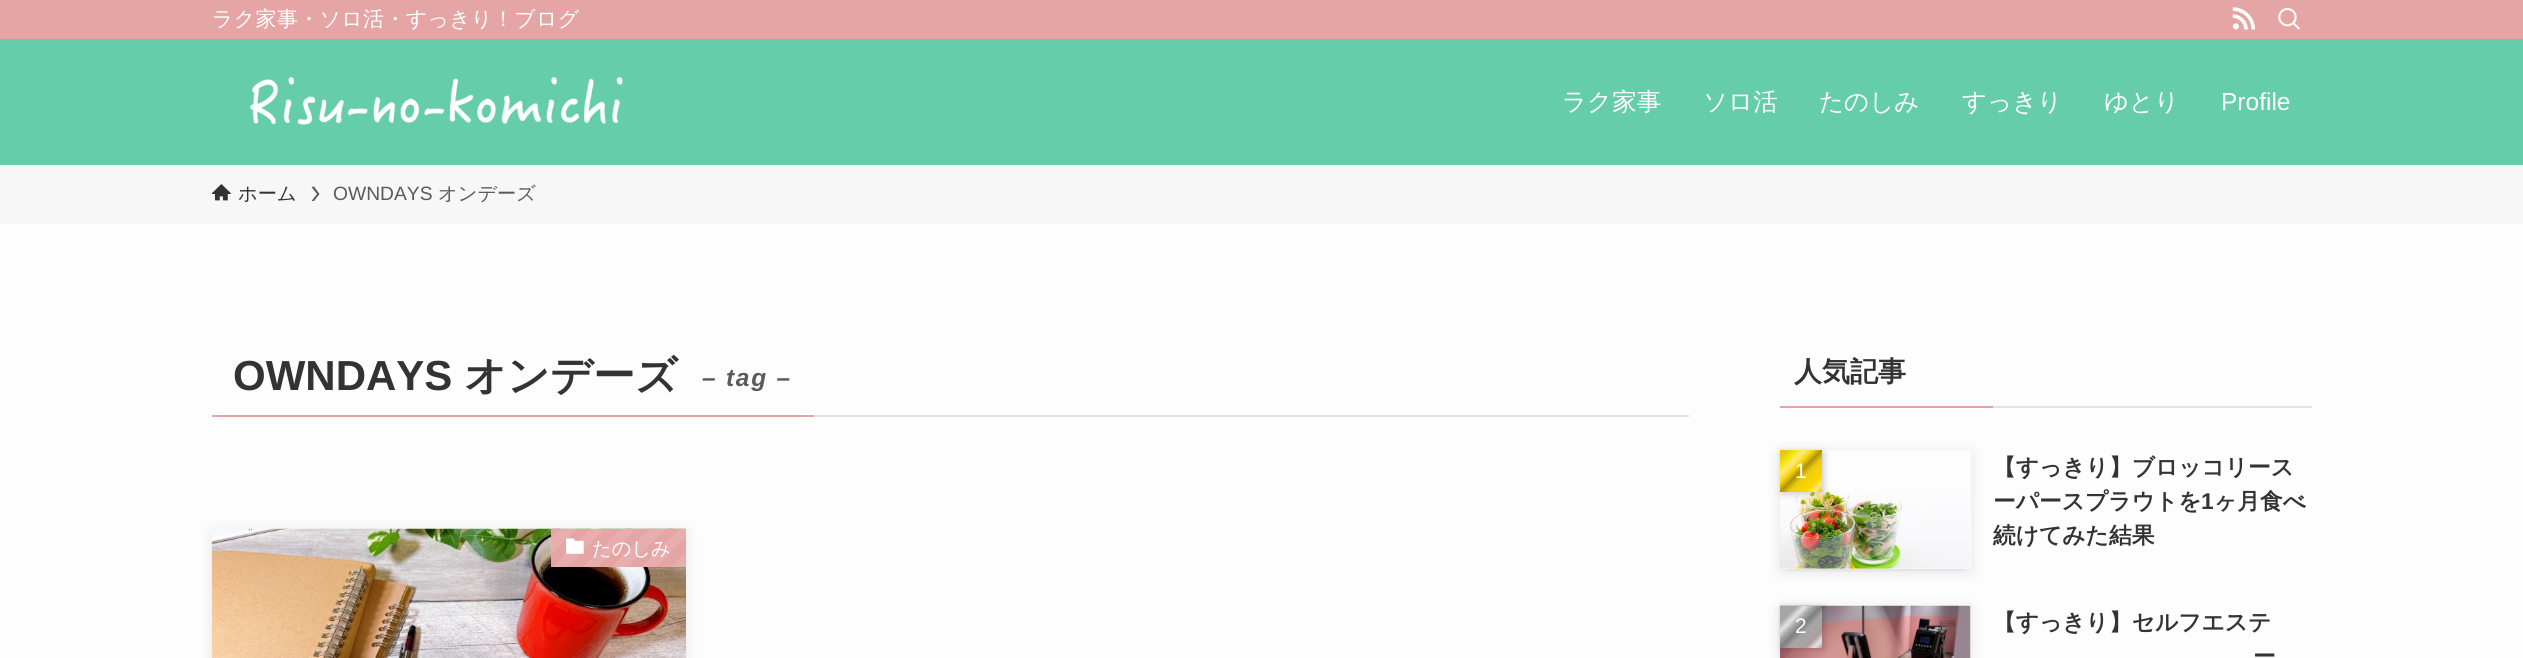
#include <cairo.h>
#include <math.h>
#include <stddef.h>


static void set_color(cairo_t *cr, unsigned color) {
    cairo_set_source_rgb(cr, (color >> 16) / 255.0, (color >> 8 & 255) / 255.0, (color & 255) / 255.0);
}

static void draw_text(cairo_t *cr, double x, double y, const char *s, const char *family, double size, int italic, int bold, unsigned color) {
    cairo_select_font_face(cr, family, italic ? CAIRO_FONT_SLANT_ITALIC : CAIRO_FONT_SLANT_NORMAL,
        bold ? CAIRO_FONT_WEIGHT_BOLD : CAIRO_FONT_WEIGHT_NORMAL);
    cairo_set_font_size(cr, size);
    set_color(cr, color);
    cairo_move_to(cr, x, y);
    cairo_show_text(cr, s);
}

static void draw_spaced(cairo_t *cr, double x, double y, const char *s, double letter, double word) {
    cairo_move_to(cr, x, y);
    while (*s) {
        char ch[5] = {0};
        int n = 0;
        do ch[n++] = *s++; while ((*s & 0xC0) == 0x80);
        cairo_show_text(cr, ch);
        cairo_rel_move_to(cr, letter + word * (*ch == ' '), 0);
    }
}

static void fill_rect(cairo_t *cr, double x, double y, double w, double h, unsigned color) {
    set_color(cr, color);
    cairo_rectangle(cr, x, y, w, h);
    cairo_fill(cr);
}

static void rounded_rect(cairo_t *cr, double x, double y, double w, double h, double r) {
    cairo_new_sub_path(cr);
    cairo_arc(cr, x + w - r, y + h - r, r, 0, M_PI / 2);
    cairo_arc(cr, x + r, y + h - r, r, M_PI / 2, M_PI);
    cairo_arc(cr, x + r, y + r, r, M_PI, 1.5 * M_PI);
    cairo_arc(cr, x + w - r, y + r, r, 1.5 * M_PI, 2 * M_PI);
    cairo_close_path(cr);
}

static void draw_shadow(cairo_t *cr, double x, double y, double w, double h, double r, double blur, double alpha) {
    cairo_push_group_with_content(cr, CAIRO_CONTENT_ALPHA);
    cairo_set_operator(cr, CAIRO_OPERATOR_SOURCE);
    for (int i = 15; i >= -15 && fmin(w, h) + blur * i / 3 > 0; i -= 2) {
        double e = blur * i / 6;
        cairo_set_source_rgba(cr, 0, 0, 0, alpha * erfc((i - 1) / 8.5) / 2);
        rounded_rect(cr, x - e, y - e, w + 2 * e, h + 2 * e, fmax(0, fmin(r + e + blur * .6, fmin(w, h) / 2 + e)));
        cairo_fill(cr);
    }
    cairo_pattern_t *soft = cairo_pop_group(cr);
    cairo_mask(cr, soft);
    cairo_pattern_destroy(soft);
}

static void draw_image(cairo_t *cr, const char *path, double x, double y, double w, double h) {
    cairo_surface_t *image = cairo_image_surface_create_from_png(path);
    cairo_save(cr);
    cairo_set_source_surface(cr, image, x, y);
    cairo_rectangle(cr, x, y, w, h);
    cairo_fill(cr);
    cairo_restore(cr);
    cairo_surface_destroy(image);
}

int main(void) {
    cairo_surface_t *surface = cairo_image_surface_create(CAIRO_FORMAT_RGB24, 2523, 658);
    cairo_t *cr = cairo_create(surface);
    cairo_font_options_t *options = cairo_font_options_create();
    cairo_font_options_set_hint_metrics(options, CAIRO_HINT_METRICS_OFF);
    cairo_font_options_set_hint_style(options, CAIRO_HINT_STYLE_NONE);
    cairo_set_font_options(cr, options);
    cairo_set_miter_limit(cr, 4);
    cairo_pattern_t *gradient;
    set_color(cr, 0xFDFDFD);
    cairo_paint(cr);
    fill_rect(cr, 0, 39, 2523, 126, 0x66CDAA);
    fill_rect(cr, 0, 0, 2523, 39, 0xE5A5A5);
    cairo_select_font_face(cr, "WenQuanYi Zen Hei Medium", CAIRO_FONT_SLANT_NORMAL, CAIRO_FONT_WEIGHT_NORMAL);
    cairo_set_font_size(cr, 21);
    set_color(cr, 0xFFFFFF);
    draw_spaced(cr, 212, 26, "ラク家事・ソロ活・すっきり！ブログ", 0.3, 0);
    draw_image(cr, "assets/img1.png", 2232, 7, 23, 23);
    draw_image(cr, "assets/img2.png", 2278, 8, 22, 22);
    draw_image(cr, "assets/img3.png", 250, 77, 373, 48);
    draw_text(cr, 1562, 110, "ラク家事", "WenQuanYi Zen Hei Medium", 24.5, 0, 0, 0xFFFFFF);
    draw_text(cr, 1703, 110, "ソロ活", "WenQuanYi Zen Hei Medium", 24.5, 0, 0, 0xFFFFFF);
    draw_text(cr, 1819, 110, "たのしみ", "WenQuanYi Zen Hei Medium", 24.5, 0, 0, 0xFFFFFF);
    draw_text(cr, 1962, 110, "すっきり", "WenQuanYi Zen Hei Medium", 24.5, 0, 0, 0xFFFFFF);
    draw_text(cr, 2104, 110, "ゆとり", "WenQuanYi Zen Hei Medium", 24.5, 0, 0, 0xFFFFFF);
    draw_text(cr, 2221, 110, "Profile", "Liberation Sans", 24.5, 0, 0, 0xFFFFFF);
    fill_rect(cr, 0, 165, 2523, 59, 0xF7F7F7);
    draw_image(cr, "assets/img4.png", 211, 184, 20, 17);
    draw_text(cr, 238, 200, "ホーム", "WenQuanYi Zen Hei Medium", 19.25, 0, 0, 0x333333);
    set_color(cr, 0x5A5A5A);
    cairo_new_path(cr);
    cairo_move_to(cr, 314, 186.5);
    cairo_line_to(cr, 311.5, 187);
    cairo_line_to(cr, 317, 194);
    cairo_line_to(cr, 311.5, 201);
    cairo_line_to(cr, 314, 201);
    cairo_line_to(cr, 319.5, 194);
    cairo_close_path(cr);
    cairo_fill(cr);
    draw_text(cr, 333, 200, "OWNDAYS", "Liberation Sans", 19.25, 0, 0, 0x5A5A5A);
    draw_text(cr, 438, 200, "オンデーズ", "WenQuanYi Zen Hei Medium", 19.25, 0, 0, 0x5A5A5A);
    fill_rect(cr, 814, 415, 875, 2, 0xE2E2E2);
    fill_rect(cr, 212, 415, 602, 2, 0xE5A5A5);
    draw_text(cr, 233, 390, "OWNDAYS", "Liberation Sans", 42, 0, 1, 0x333333);
    draw_text(cr, 464, 390, "オンデーズ", "WenQuanYi Zen Hei", 42, 0, 1, 0x333333);
    cairo_select_font_face(cr, "Liberation Sans", CAIRO_FONT_SLANT_ITALIC, CAIRO_FONT_WEIGHT_BOLD);
    cairo_set_font_size(cr, 24.5);
    set_color(cr, 0x5A5A5A);
    draw_spaced(cr, 702, 386, "– tag –", 1.75, 0);
    set_color(cr, 0x000000);
    draw_shadow(cr, 212, 532, 474, 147, 0, 7, 0.1);
    draw_image(cr, "assets/img5.png", 211, 528, 475, 130);
    gradient = cairo_pattern_create_linear(662, 591, 573, 502);
    cairo_pattern_add_color_stop_rgba(gradient, 0, 0.91, 0.682, 0.682, 1);
    cairo_pattern_add_color_stop_rgba(gradient, 0.08, 0.91, 0.682, 0.682, 1);
    cairo_pattern_add_color_stop_rgba(gradient, 0.08, 0.898, 0.647, 0.647, 1);
    cairo_pattern_add_color_stop_rgba(gradient, 0.17, 0.898, 0.647, 0.647, 1);
    cairo_pattern_add_color_stop_rgba(gradient, 0.17, 0.91, 0.682, 0.682, 1);
    cairo_pattern_add_color_stop_rgba(gradient, 0.25, 0.91, 0.682, 0.682, 1);
    cairo_pattern_add_color_stop_rgba(gradient, 0.25, 0.898, 0.647, 0.647, 1);
    cairo_pattern_add_color_stop_rgba(gradient, 0.33, 0.898, 0.647, 0.647, 1);
    cairo_pattern_add_color_stop_rgba(gradient, 0.33, 0.91, 0.682, 0.682, 1);
    cairo_pattern_add_color_stop_rgba(gradient, 0.42, 0.91, 0.682, 0.682, 1);
    cairo_pattern_add_color_stop_rgba(gradient, 0.42, 0.898, 0.647, 0.647, 1);
    cairo_pattern_add_color_stop_rgba(gradient, 0.5, 0.898, 0.647, 0.647, 1);
    cairo_pattern_add_color_stop_rgba(gradient, 0.5, 0.91, 0.682, 0.682, 1);
    cairo_pattern_add_color_stop_rgba(gradient, 0.58, 0.91, 0.682, 0.682, 1);
    cairo_pattern_add_color_stop_rgba(gradient, 0.58, 0.898, 0.647, 0.647, 1);
    cairo_pattern_add_color_stop_rgba(gradient, 0.67, 0.898, 0.647, 0.647, 1);
    cairo_pattern_add_color_stop_rgba(gradient, 0.67, 0.91, 0.682, 0.682, 1);
    cairo_pattern_add_color_stop_rgba(gradient, 0.75, 0.91, 0.682, 0.682, 1);
    cairo_pattern_add_color_stop_rgba(gradient, 0.75, 0.898, 0.647, 0.647, 1);
    cairo_pattern_add_color_stop_rgba(gradient, 0.83, 0.898, 0.647, 0.647, 1);
    cairo_pattern_add_color_stop_rgba(gradient, 0.83, 0.91, 0.682, 0.682, 1);
    cairo_pattern_add_color_stop_rgba(gradient, 0.92, 0.91, 0.682, 0.682, 1);
    cairo_pattern_add_color_stop_rgba(gradient, 0.92, 0.898, 0.647, 0.647, 1);
    cairo_pattern_add_color_stop_rgba(gradient, 1, 0.898, 0.647, 0.647, 1);
    cairo_set_source(cr, gradient);
    cairo_pattern_destroy(gradient);
    cairo_rectangle(cr, 551, 529, 135, 38);
    cairo_fill(cr);
    draw_image(cr, "assets/img6.png", 566, 538, 18, 16);
    draw_text(cr, 592, 555, "たのしみ", "WenQuanYi Zen Hei Medium", 19.25, 0, 0, 0xFFFFFF);
    draw_text(cr, 1794, 381, "人気記事", "WenQuanYi Zen Hei", 28, 0, 1, 0x333333);
    fill_rect(cr, 1780, 406, 213, 2, 0xE5A5A5);
    fill_rect(cr, 1993, 406, 319, 2, 0xE2E2E2);
    cairo_save(cr);
    cairo_rectangle(cr, 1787, 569, 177, 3);
    cairo_clip(cr);
    set_color(cr, 0x000000);
    draw_shadow(cr, 1787, 464, 177, 105, 0, 3.5, 0.1);
    cairo_restore(cr);
    cairo_save(cr);
    cairo_set_fill_rule(cr, CAIRO_FILL_RULE_EVEN_ODD);
    cairo_new_path(cr);
    cairo_move_to(cr, 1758, 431);
    cairo_line_to(cr, 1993, 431);
    cairo_line_to(cr, 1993, 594);
    cairo_line_to(cr, 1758, 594);
    cairo_close_path(cr);
    cairo_move_to(cr, 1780, 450);
    cairo_line_to(cr, 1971, 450);
    cairo_line_to(cr, 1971, 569);
    cairo_line_to(cr, 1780, 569);
    cairo_close_path(cr);
    cairo_clip(cr);
    set_color(cr, 0x000000);
    draw_shadow(cr, 1780, 453, 191, 119, 0, 7, 0.1);
    cairo_restore(cr);
    draw_image(cr, "assets/img7.png", 1780, 491, 190, 78);
    set_color(cr, 0x000000);
    draw_shadow(cr, 1782, 452, 42, 42, 0, 3.5, 0.2);
    gradient = cairo_pattern_create_linear(1822, 492, 1780, 450);
    cairo_pattern_add_color_stop_rgba(gradient, 0, 0.969, 0.749, 0.02, 1);
    cairo_pattern_add_color_stop_rgba(gradient, 0.1, 0.988, 0.918, 0.498, 1);
    cairo_pattern_add_color_stop_rgba(gradient, 0.2, 0.988, 0.843, 0, 1);
    cairo_pattern_add_color_stop_rgba(gradient, 0.3, 0.969, 0.827, 0.02, 1);
    cairo_pattern_add_color_stop_rgba(gradient, 0.4, 0.918, 0.792, 0.071, 1);
    cairo_pattern_add_color_stop_rgba(gradient, 0.5, 0.675, 0.576, 0.012, 1);
    cairo_pattern_add_color_stop_rgba(gradient, 0.6, 0.969, 0.827, 0.02, 1);
    cairo_pattern_add_color_stop_rgba(gradient, 0.7, 0.988, 0.918, 0.498, 1);
    cairo_pattern_add_color_stop_rgba(gradient, 0.8, 0.969, 0.906, 0.02, 1);
    cairo_pattern_add_color_stop_rgba(gradient, 0.9, 0.918, 0.792, 0.071, 1);
    cairo_pattern_add_color_stop_rgba(gradient, 1, 0.969, 0.749, 0.02, 1);
    cairo_set_source(cr, gradient);
    cairo_pattern_destroy(gradient);
    cairo_rectangle(cr, 1780, 450, 42, 42);
    cairo_fill(cr);
    draw_text(cr, 1795, 478, "1", "Liberation Sans", 21, 0, 0, 0xFFFFFF);
    draw_text(cr, 1993, 475, "【すっきり】ブロッコリース", "WenQuanYi Zen Hei", 22.75, 0, 1, 0x333333);
    draw_text(cr, 1993, 509, "ーパースプラウトを", "WenQuanYi Zen Hei", 22.75, 0, 1, 0x333333);
    draw_text(cr, 2201, 509, "1", "Liberation Sans", 22.75, 0, 1, 0x333333);
    draw_text(cr, 2214, 509, "ヶ月食べ", "WenQuanYi Zen Hei", 22.75, 0, 1, 0x333333);
    draw_text(cr, 1993, 543, "続けてみた結果", "WenQuanYi Zen Hei", 22.75, 0, 1, 0x333333);
    set_color(cr, 0x000000);
    draw_shadow(cr, 1780, 609, 191, 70, 0, 7, 0.1);
    draw_image(cr, "assets/img8.png", 1779, 605, 192, 53);
    draw_shadow(cr, 1782, 607, 42, 42, 0, 3.5, 0.2);
    gradient = cairo_pattern_create_linear(1822, 648, 1780, 606);
    cairo_pattern_add_color_stop_rgba(gradient, 0, 0.647, 0.647, 0.647, 1);
    cairo_pattern_add_color_stop_rgba(gradient, 0.1, 0.898, 0.898, 0.898, 1);
    cairo_pattern_add_color_stop_rgba(gradient, 0.2, 0.682, 0.612, 0.612, 1);
    cairo_pattern_add_color_stop_rgba(gradient, 0.3, 0.647, 0.647, 0.647, 1);
    cairo_pattern_add_color_stop_rgba(gradient, 0.4, 0.647, 0.647, 0.647, 1);
    cairo_pattern_add_color_stop_rgba(gradient, 0.5, 0.498, 0.498, 0.498, 1);
    cairo_pattern_add_color_stop_rgba(gradient, 0.6, 0.647, 0.647, 0.647, 1);
    cairo_pattern_add_color_stop_rgba(gradient, 0.7, 0.898, 0.898, 0.898, 1);
    cairo_pattern_add_color_stop_rgba(gradient, 0.8, 0.647, 0.647, 0.647, 1);
    cairo_pattern_add_color_stop_rgba(gradient, 1, 0.647, 0.647, 0.647, 1);
    cairo_set_source(cr, gradient);
    cairo_pattern_destroy(gradient);
    cairo_rectangle(cr, 1780, 606, 42, 42);
    cairo_fill(cr);
    draw_text(cr, 1795, 633, "2", "Liberation Sans", 21, 0, 0, 0xFFFFFF);
    draw_text(cr, 1993, 630, "【すっきり】セルフエステ", "WenQuanYi Zen Hei", 22.75, 0, 1, 0x333333);
    draw_text(cr, 2253, 664, "ー", "WenQuanYi Zen Hei", 22.75, 0, 1, 0x333333);
    cairo_surface_write_to_png(surface, "output.png");
    cairo_font_options_destroy(options);
    cairo_destroy(cr);
    cairo_surface_destroy(surface);
    return 0;
}
